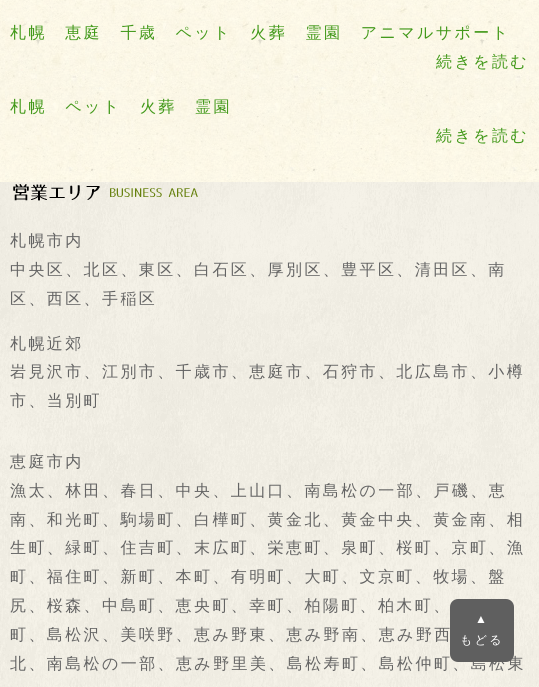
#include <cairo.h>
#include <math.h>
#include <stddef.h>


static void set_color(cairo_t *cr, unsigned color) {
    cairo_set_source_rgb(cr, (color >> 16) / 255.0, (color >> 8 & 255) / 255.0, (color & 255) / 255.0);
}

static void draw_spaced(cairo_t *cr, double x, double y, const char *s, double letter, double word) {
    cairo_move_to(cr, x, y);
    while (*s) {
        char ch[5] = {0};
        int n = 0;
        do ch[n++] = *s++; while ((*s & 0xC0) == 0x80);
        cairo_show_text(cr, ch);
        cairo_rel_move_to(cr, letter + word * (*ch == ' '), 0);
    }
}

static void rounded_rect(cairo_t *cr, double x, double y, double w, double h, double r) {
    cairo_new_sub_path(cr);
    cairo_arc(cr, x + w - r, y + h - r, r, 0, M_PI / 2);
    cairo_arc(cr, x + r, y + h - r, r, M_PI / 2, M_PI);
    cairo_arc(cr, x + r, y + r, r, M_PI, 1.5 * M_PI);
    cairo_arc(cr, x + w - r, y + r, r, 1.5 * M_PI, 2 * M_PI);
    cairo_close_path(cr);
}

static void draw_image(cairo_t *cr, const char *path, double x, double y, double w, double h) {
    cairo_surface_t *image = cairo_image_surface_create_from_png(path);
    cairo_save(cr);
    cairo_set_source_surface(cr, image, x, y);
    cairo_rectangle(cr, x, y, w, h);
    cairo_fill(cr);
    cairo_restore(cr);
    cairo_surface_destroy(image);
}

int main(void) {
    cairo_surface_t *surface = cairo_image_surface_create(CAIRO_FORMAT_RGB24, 539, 687);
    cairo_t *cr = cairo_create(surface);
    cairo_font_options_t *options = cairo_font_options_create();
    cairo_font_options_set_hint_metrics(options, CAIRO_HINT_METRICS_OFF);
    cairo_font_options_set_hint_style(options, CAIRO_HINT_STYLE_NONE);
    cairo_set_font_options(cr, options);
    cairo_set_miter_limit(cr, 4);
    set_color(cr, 0xFFFFFF);
    cairo_paint(cr);
    draw_image(cr, "assets/img1.png", 0, 0, 539, 182);
    cairo_select_font_face(cr, "WenQuanYi Zen Hei Medium", CAIRO_FONT_SLANT_NORMAL, CAIRO_FONT_WEIGHT_NORMAL);
    cairo_set_font_size(cr, 16);
    set_color(cr, 0x42991A);
    draw_spaced(cr, 10, 38, "札幌　恵庭　千歳　ペット　火葬　霊園　アニマルサポート", 2.4, 0);
    draw_spaced(cr, 436, 67, "続きを読む", 2.4, 0);
    draw_spaced(cr, 10, 112, "札幌　ペット　火葬　霊園", 2.4, 0);
    draw_spaced(cr, 436, 141, "続きを読む", 2.4, 0);
    draw_image(cr, "assets/img2.png", 0, 182, 539, 505);
    draw_image(cr, "assets/img3.png", 13, 184, 185, 17);
    set_color(cr, 0x646464);
    draw_spaced(cr, 10, 246, "札幌市内", 2.4, 0);
    draw_spaced(cr, 10, 275, "中央区、北区、東区、白石区、厚別区、豊平区、清田区、南", 2.4, 0);
    draw_spaced(cr, 10, 304, "区、西区、手稲区", 2.4, 0);
    draw_spaced(cr, 10, 349, "札幌近郊", 2.4, 0);
    draw_spaced(cr, 10, 377, "岩見沢市、江別市、千歳市、恵庭市、石狩市、北広島市、小樽", 2.4, 0);
    draw_spaced(cr, 10, 406, "市、当別町", 2.4, 0);
    draw_spaced(cr, 10, 467, "恵庭市内", 2.4, 0);
    draw_spaced(cr, 10, 496, "漁太、林田、春日、中央、上山口、南島松の一部、戸磯、恵", 2.4, 0);
    draw_spaced(cr, 10, 525, "南、和光町、駒場町、白樺町、黄金北、黄金中央、黄金南、相", 2.4, 0);
    draw_spaced(cr, 10, 553, "生町、緑町、住吉町、末広町、栄恵町、泉町、桜町、京町、漁", 2.4, 0);
    draw_spaced(cr, 10, 582, "町、福住町、新町、本町、有明町、大町、文京町、牧場、盤", 2.4, 0);
    draw_spaced(cr, 10, 611, "尻、桜森、中島町、恵央町、幸町、柏陽町、柏木町、", 2.4, 0);
    draw_spaced(cr, 10, 640, "町、島松沢、美咲野、恵み野東、恵み野南、恵み野西", 2.4, 0);
    draw_spaced(cr, 10, 669, "北、南島松の一部、恵み野里美、島松寿町、島松仲町、島松東", 2.4, 0);
    set_color(cr, 0x5F5F5F);
    rounded_rect(cr, 450, 599, 64, 63, 8);
    cairo_fill(cr);
    cairo_select_font_face(cr, "Liberation Sans", CAIRO_FONT_SLANT_NORMAL, CAIRO_FONT_WEIGHT_NORMAL);
    cairo_set_font_size(cr, 12);
    set_color(cr, 0xFFFFFF);
    draw_spaced(cr, 475, 623, "▲", 2.4, 0);
    cairo_select_font_face(cr, "WenQuanYi Zen Hei Medium", CAIRO_FONT_SLANT_NORMAL, CAIRO_FONT_WEIGHT_NORMAL);
    draw_spaced(cr, 460, 644, "もどる", 2.4, 0);
    cairo_surface_write_to_png(surface, "output.png");
    cairo_font_options_destroy(options);
    cairo_destroy(cr);
    cairo_surface_destroy(surface);
    return 0;
}
